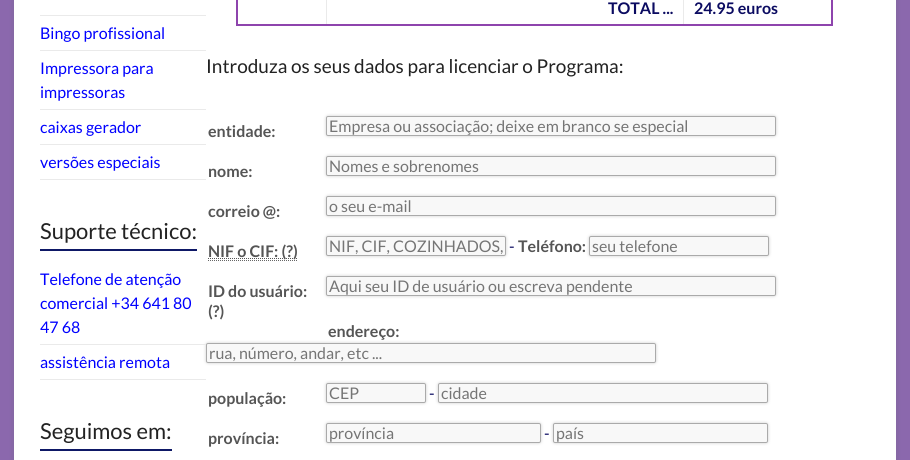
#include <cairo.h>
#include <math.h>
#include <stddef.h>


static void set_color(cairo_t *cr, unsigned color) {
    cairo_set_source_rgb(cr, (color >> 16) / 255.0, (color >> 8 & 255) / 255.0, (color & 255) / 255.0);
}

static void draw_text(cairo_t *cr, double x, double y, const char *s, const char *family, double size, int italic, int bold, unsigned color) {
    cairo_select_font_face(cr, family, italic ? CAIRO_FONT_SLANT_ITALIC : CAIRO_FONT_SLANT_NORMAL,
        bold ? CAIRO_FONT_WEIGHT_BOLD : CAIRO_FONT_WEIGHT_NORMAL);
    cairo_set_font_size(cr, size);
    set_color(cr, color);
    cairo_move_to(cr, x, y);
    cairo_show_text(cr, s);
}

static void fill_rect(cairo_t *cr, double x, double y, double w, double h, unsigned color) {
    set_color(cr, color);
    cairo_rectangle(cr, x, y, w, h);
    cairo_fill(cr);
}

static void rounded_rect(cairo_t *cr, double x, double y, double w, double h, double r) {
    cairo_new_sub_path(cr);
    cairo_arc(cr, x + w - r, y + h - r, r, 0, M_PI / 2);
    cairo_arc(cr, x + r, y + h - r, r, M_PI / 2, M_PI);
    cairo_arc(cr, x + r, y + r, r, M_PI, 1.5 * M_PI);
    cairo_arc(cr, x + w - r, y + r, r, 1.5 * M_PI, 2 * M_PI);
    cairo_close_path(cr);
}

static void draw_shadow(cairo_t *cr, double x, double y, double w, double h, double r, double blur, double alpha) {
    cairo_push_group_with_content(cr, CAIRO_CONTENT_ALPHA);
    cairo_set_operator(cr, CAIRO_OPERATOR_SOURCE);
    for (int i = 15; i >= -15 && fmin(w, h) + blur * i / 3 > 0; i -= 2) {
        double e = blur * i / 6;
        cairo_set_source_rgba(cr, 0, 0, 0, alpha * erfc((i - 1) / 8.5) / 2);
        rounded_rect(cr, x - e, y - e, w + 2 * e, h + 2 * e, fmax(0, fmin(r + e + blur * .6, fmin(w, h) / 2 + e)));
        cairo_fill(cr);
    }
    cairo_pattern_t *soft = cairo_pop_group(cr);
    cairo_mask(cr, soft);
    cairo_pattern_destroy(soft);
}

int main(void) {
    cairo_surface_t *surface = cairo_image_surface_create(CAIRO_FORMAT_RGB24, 910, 460);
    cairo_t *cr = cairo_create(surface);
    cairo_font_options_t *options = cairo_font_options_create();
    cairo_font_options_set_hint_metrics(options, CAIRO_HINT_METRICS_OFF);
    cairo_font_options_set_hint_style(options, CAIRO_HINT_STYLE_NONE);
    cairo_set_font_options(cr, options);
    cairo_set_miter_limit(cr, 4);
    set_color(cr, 0x8B68AD);
    cairo_paint(cr);
    set_color(cr, 0x646464);
    draw_shadow(cr, 14, -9, 882, 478, 0, 3, 0.3);
    fill_rect(cr, 14, 0, 882, 460, 0xFFFFFF);
    fill_rect(cr, 40, 15, 166, 1, 0xEAEAEA);
    fill_rect(cr, 40, 50, 166, 1, 0xEAEAEA);
    draw_text(cr, 40, 39, "Bingo profissional", "Lato", 16, 0, 0, 0x0000FF);
    fill_rect(cr, 40, 109, 166, 1, 0xEAEAEA);
    draw_text(cr, 40, 74, "Impressora para", "Lato", 16, 0, 0, 0x0000FF);
    draw_text(cr, 40, 98, "impressoras", "Lato", 16, 0, 0, 0x0000FF);
    fill_rect(cr, 40, 144, 166, 1, 0xEAEAEA);
    draw_text(cr, 40, 133, "caixas gerador", "Lato", 16, 0, 0, 0x0000FF);
    fill_rect(cr, 40, 179, 166, 1, 0xEAEAEA);
    draw_text(cr, 40, 168, "versões especiais", "Lato", 16, 0, 0, 0x0000FF);
    draw_text(cr, 40, 239, "Suporte técnico:", "Lato", 22, 0, 0, 0x222222);
    fill_rect(cr, 40, 249, 157, 2, 0x0E1866);
    set_color(cr, 0xCCCCCC);
    draw_shadow(cr, 206, 343, 450, 20, 2, 1.5, 1);
    fill_rect(cr, 40, 344, 166, 1, 0xEAEAEA);
    draw_text(cr, 40, 285, "Telefone de atenção", "Lato", 16, 0, 0, 0x0000FF);
    draw_text(cr, 40, 309, "comercial +34 641 80", "Lato", 16, 0, 0, 0x0000FF);
    draw_text(cr, 40, 333, "47 68", "Lato", 16, 0, 0, 0x0000FF);
    fill_rect(cr, 40, 379, 166, 1, 0xEAEAEA);
    draw_text(cr, 40, 368, "assistência remota", "Lato", 16, 0, 0, 0x0000FF);
    draw_text(cr, 40, 439, "Seguimos em:", "Lato", 22, 0, 0, 0x222222);
    fill_rect(cr, 40, 449, 132, 2, 0x0E1866);
    fill_rect(cr, 831, 0, 2, 26, 0x8E44AD);
    fill_rect(cr, 326, 0, 1, 26, 0xEAEAEA);
    fill_rect(cr, 683, 0, 1, 26, 0xEAEAEA);
    fill_rect(cr, 236, 24, 597, 2, 0x8E44AD);
    fill_rect(cr, 236, 0, 2, 26, 0x8E44AD);
    draw_text(cr, 608, 14, "TOTAL ...", "Lato", 16, 0, 1, 0x0B0B61);
    draw_text(cr, 694, 14, "24.95 euros", "Lato", 16, 0, 1, 0x0B0B61);
    draw_text(cr, 206, 73, "Introduza os seus dados para licenciar o Programa:", "Lato", 19, 0, 0, 0x222222);
    draw_text(cr, 208, 137, "entidade:", "Lato", 16, 0, 1, 0x555555);
    set_color(cr, 0xCCCCCC);
    draw_shadow(cr, 326, 116, 450, 20, 2, 1.5, 1);
    set_color(cr, 0xF8F8F8);
    rounded_rect(cr, 326.5, 116.5, 449, 19, 1.5);
    cairo_fill_preserve(cr);
    set_color(cr, 0xAAAAAA);
    cairo_set_line_width(cr, 1);
    cairo_stroke(cr);
    draw_text(cr, 329, 132, "Empresa ou associação; deixe em branco se especial", "Lato", 16, 0, 0, 0x757575);
    draw_text(cr, 208, 177, "nome:", "Lato", 16, 0, 1, 0x555555);
    set_color(cr, 0xCCCCCC);
    draw_shadow(cr, 326, 156, 450, 20, 2, 1.5, 1);
    set_color(cr, 0xF8F8F8);
    rounded_rect(cr, 326.5, 156.5, 449, 19, 1.5);
    cairo_fill_preserve(cr);
    set_color(cr, 0xAAAAAA);
    cairo_stroke(cr);
    draw_text(cr, 329, 172, "Nomes e sobrenomes", "Lato", 16, 0, 0, 0x757575);
    draw_text(cr, 208, 217, "correio @:", "Lato", 16, 0, 1, 0x555555);
    set_color(cr, 0xCCCCCC);
    draw_shadow(cr, 326, 196, 450, 20, 2, 1.5, 1);
    set_color(cr, 0xF8F8F8);
    rounded_rect(cr, 326.5, 196.5, 449, 19, 1.5);
    cairo_fill_preserve(cr);
    set_color(cr, 0xAAAAAA);
    cairo_stroke(cr);
    draw_text(cr, 329, 212, "o seu e-mail", "Lato", 16, 0, 0, 0x757575);
    cairo_new_path(cr);
    cairo_move_to(cr, 208, 258.5);
    cairo_line_to(cr, 298, 258.5);
    set_color(cr, 0x555555);
    cairo_set_dash(cr, (double[]){1, 1}, 2, 0);
    cairo_stroke(cr);
    draw_text(cr, 208, 257, "NIF o CIF: (?)", "Lato", 16, 0, 1, 0x555555);
    cairo_new_path(cr);
    cairo_move_to(cr, 208, 260.5);
    cairo_line_to(cr, 298, 260.5);
    set_color(cr, 0x666666);
    cairo_stroke(cr);
    set_color(cr, 0xCCCCCC);
    draw_shadow(cr, 326, 236, 180, 20, 2, 1.5, 1);
    set_color(cr, 0xF8F8F8);
    rounded_rect(cr, 326.5, 236.5, 179, 19, 1.5);
    cairo_fill_preserve(cr);
    set_color(cr, 0xAAAAAA);
    cairo_set_dash(cr, NULL, 0, 0);
    cairo_stroke(cr);
    draw_text(cr, 329, 252, "NIF, CIF, COZINHADOS,", "Lato", 16, 0, 0, 0x757575);
    draw_text(cr, 509, 252, "-", "Lato", 16, 0, 0, 0x0B0B61);
    draw_text(cr, 518, 252, "Teléfono:", "Lato", 16, 0, 1, 0x555555);
    set_color(cr, 0xCCCCCC);
    draw_shadow(cr, 589, 236, 180, 20, 2, 1.5, 1);
    set_color(cr, 0xF8F8F8);
    rounded_rect(cr, 589.5, 236.5, 179, 19, 1.5);
    cairo_fill_preserve(cr);
    set_color(cr, 0xAAAAAA);
    cairo_stroke(cr);
    draw_text(cr, 592, 252, "seu telefone", "Lato", 16, 0, 0, 0x757575);
    draw_text(cr, 208, 297, "ID do usuário:", "Lato", 16, 0, 1, 0x555555);
    draw_text(cr, 208, 317, "(?)", "Lato", 16, 0, 1, 0x555555);
    set_color(cr, 0xCCCCCC);
    draw_shadow(cr, 326, 276, 450, 20, 2, 1.5, 1);
    set_color(cr, 0xF8F8F8);
    rounded_rect(cr, 326.5, 276.5, 449, 19, 1.5);
    cairo_fill_preserve(cr);
    set_color(cr, 0xAAAAAA);
    cairo_stroke(cr);
    draw_text(cr, 329, 292, "Aqui seu ID de usuário ou escreva pendente", "Lato", 16, 0, 0, 0x757575);
    draw_text(cr, 328, 337, "endereço:", "Lato", 16, 0, 1, 0x555555);
    set_color(cr, 0xF8F8F8);
    rounded_rect(cr, 206.5, 343.5, 449, 19, 1.5);
    cairo_fill_preserve(cr);
    set_color(cr, 0xAAAAAA);
    cairo_stroke(cr);
    draw_text(cr, 209, 359, "rua, número, andar, etc ...", "Lato", 16, 0, 0, 0x757575);
    draw_text(cr, 208, 404, "população:", "Lato", 16, 0, 1, 0x555555);
    set_color(cr, 0xCCCCCC);
    draw_shadow(cr, 326, 383, 100, 20, 2, 1.5, 1);
    set_color(cr, 0xF8F8F8);
    rounded_rect(cr, 326.5, 383.5, 99, 19, 1.5);
    cairo_fill_preserve(cr);
    set_color(cr, 0xAAAAAA);
    cairo_stroke(cr);
    draw_text(cr, 329, 399, "CEP", "Lato", 16, 0, 0, 0x757575);
    draw_text(cr, 429, 399, "-", "Lato", 16, 0, 0, 0x0B0B61);
    set_color(cr, 0xCCCCCC);
    draw_shadow(cr, 438, 383, 330, 20, 2, 1.5, 1);
    set_color(cr, 0xF8F8F8);
    rounded_rect(cr, 438.5, 383.5, 329, 19, 1.5);
    cairo_fill_preserve(cr);
    set_color(cr, 0xAAAAAA);
    cairo_stroke(cr);
    draw_text(cr, 441, 399, "cidade", "Lato", 16, 0, 0, 0x757575);
    draw_text(cr, 208, 444, "província:", "Lato", 16, 0, 1, 0x555555);
    set_color(cr, 0xCCCCCC);
    draw_shadow(cr, 326, 423, 215, 20, 2, 1.5, 1);
    set_color(cr, 0xF8F8F8);
    rounded_rect(cr, 326.5, 423.5, 214, 19, 1.5);
    cairo_fill_preserve(cr);
    set_color(cr, 0xAAAAAA);
    cairo_stroke(cr);
    draw_text(cr, 329, 439, "província", "Lato", 16, 0, 0, 0x757575);
    draw_text(cr, 544, 439, "-", "Lato", 16, 0, 0, 0x0B0B61);
    set_color(cr, 0xCCCCCC);
    draw_shadow(cr, 553, 423, 215, 20, 2, 1.5, 1);
    set_color(cr, 0xF8F8F8);
    rounded_rect(cr, 553.5, 423.5, 214, 19, 1.5);
    cairo_fill_preserve(cr);
    set_color(cr, 0xAAAAAA);
    cairo_stroke(cr);
    draw_text(cr, 556, 439, "país", "Lato", 16, 0, 0, 0x757575);
    cairo_surface_write_to_png(surface, "output.png");
    cairo_font_options_destroy(options);
    cairo_destroy(cr);
    cairo_surface_destroy(surface);
    return 0;
}
